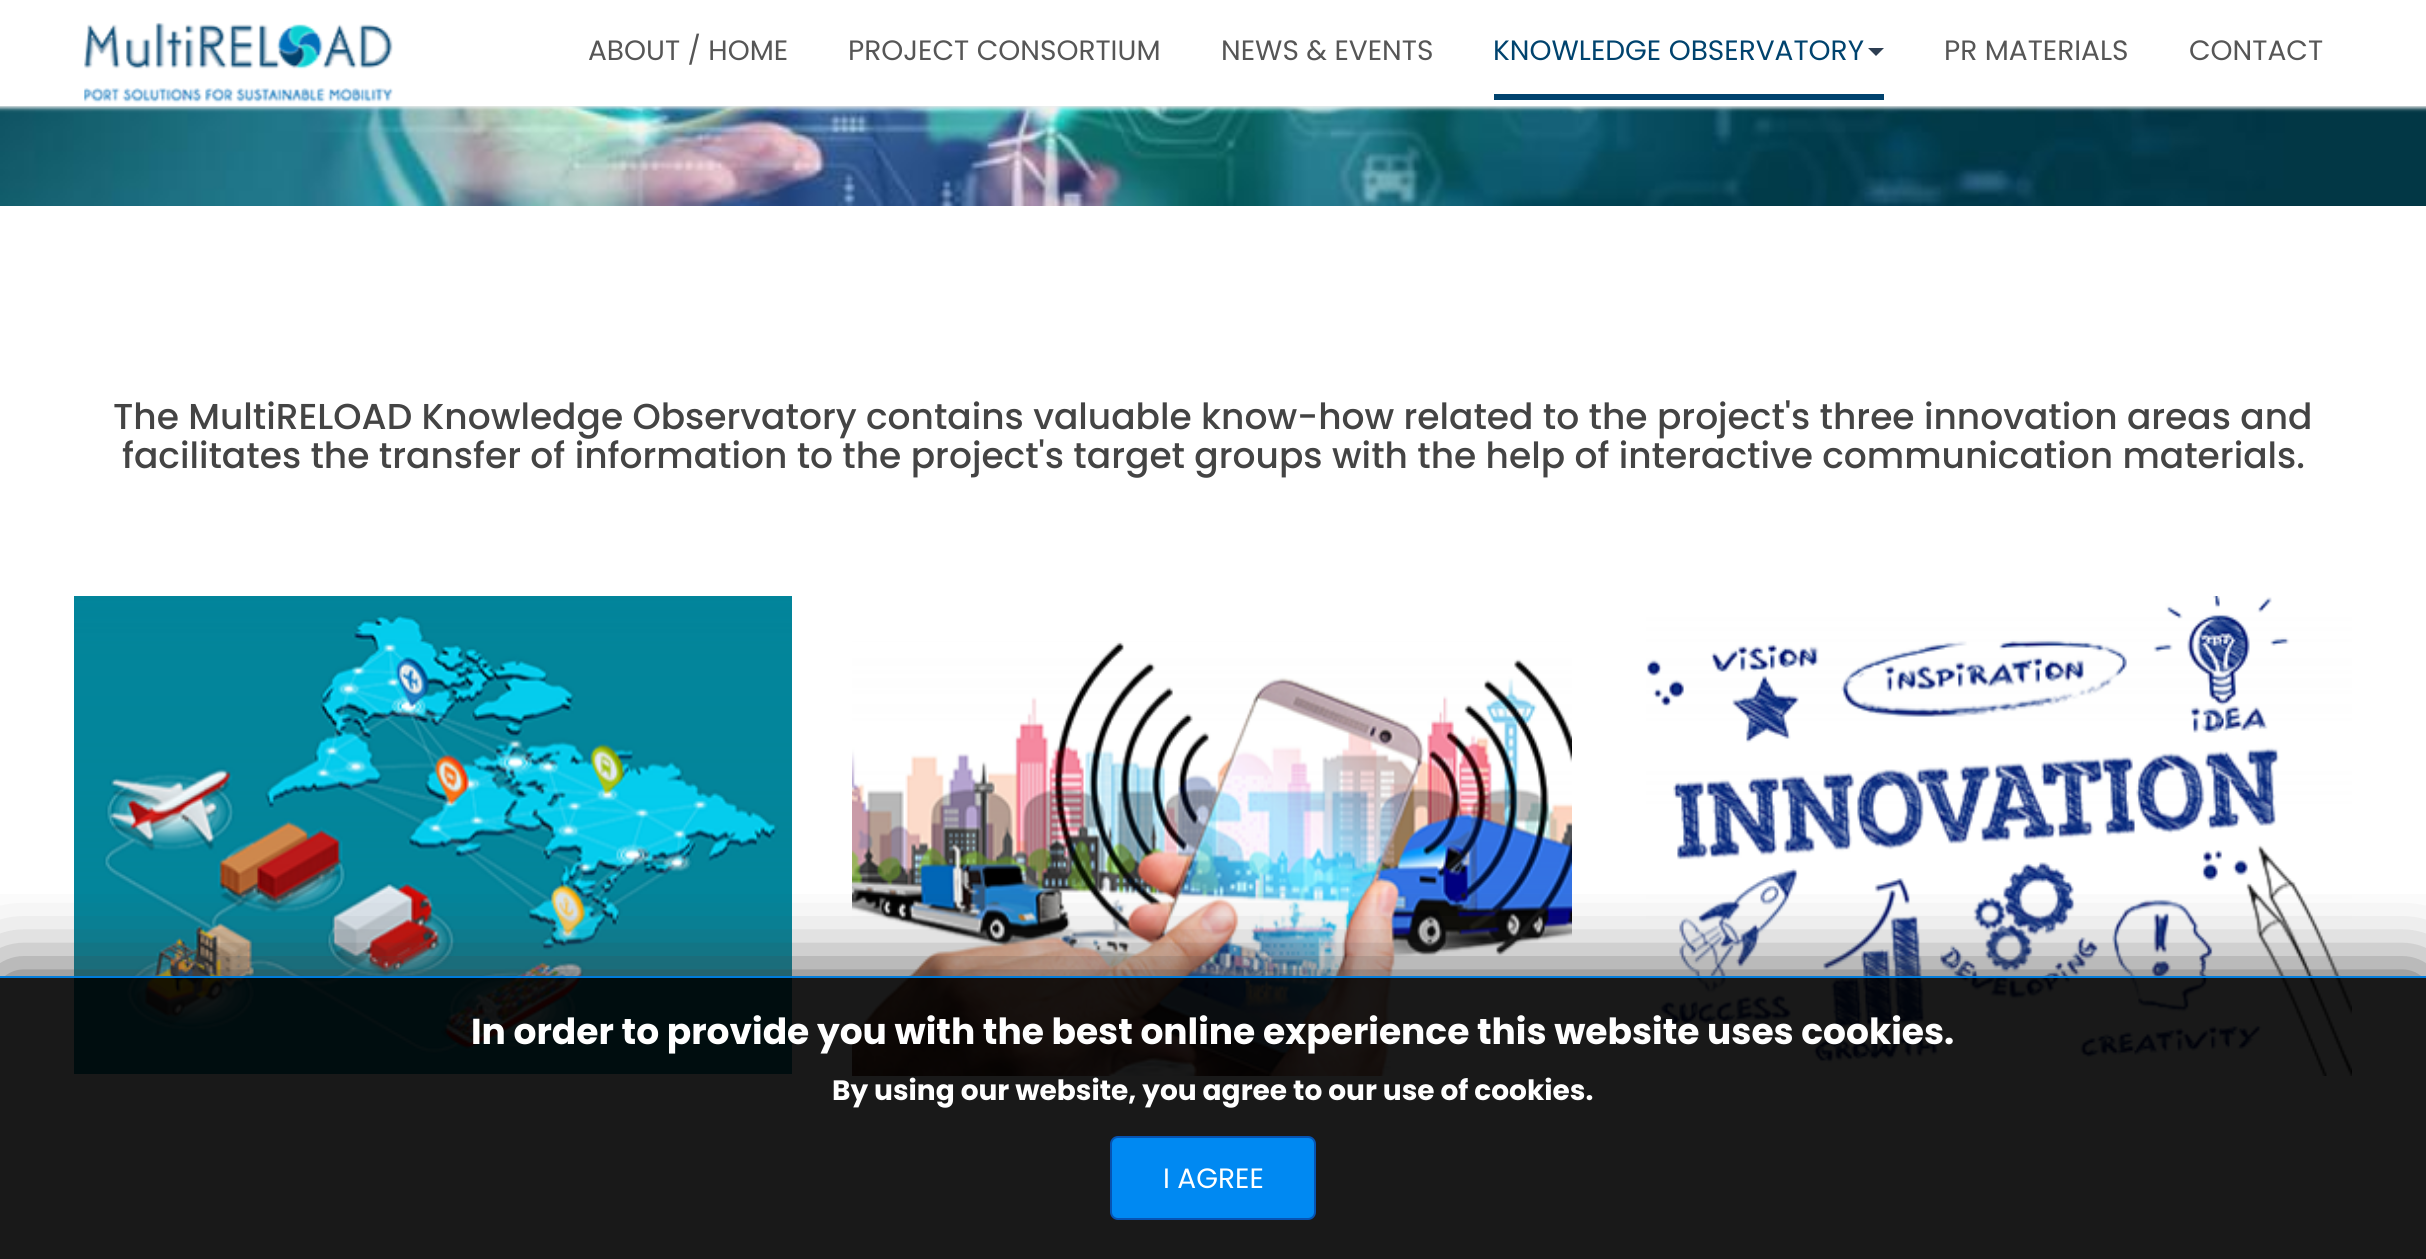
#include <cairo.h>
#include <math.h>
#include <stddef.h>


static void set_color(cairo_t *cr, unsigned color) {
    cairo_set_source_rgb(cr, (color >> 16) / 255.0, (color >> 8 & 255) / 255.0, (color & 255) / 255.0);
}

static void draw_text(cairo_t *cr, double x, double y, const char *s, const char *family, double size, int italic, int bold, unsigned color) {
    cairo_select_font_face(cr, family, italic ? CAIRO_FONT_SLANT_ITALIC : CAIRO_FONT_SLANT_NORMAL,
        bold ? CAIRO_FONT_WEIGHT_BOLD : CAIRO_FONT_WEIGHT_NORMAL);
    cairo_set_font_size(cr, size);
    set_color(cr, color);
    cairo_move_to(cr, x, y);
    cairo_show_text(cr, s);
}

static void fill_rect(cairo_t *cr, double x, double y, double w, double h, unsigned color) {
    set_color(cr, color);
    cairo_rectangle(cr, x, y, w, h);
    cairo_fill(cr);
}

static void rounded_rect(cairo_t *cr, double x, double y, double w, double h, double r) {
    cairo_new_sub_path(cr);
    cairo_arc(cr, x + w - r, y + h - r, r, 0, M_PI / 2);
    cairo_arc(cr, x + r, y + h - r, r, M_PI / 2, M_PI);
    cairo_arc(cr, x + r, y + r, r, M_PI, 1.5 * M_PI);
    cairo_arc(cr, x + w - r, y + r, r, 1.5 * M_PI, 2 * M_PI);
    cairo_close_path(cr);
}

static void draw_shadow(cairo_t *cr, double x, double y, double w, double h, double r, double blur, double alpha) {
    cairo_push_group_with_content(cr, CAIRO_CONTENT_ALPHA);
    cairo_set_operator(cr, CAIRO_OPERATOR_SOURCE);
    for (int i = 15; i >= -15 && fmin(w, h) + blur * i / 3 > 0; i -= 2) {
        double e = blur * i / 6;
        cairo_set_source_rgba(cr, 0, 0, 0, alpha * erfc((i - 1) / 8.5) / 2);
        rounded_rect(cr, x - e, y - e, w + 2 * e, h + 2 * e, fmax(0, fmin(r + e + blur * .6, fmin(w, h) / 2 + e)));
        cairo_fill(cr);
    }
    cairo_pattern_t *soft = cairo_pop_group(cr);
    cairo_mask(cr, soft);
    cairo_pattern_destroy(soft);
}

static void draw_image(cairo_t *cr, const char *path, double x, double y, double w, double h) {
    cairo_surface_t *image = cairo_image_surface_create_from_png(path);
    cairo_save(cr);
    cairo_set_source_surface(cr, image, x, y);
    cairo_rectangle(cr, x, y, w, h);
    cairo_fill(cr);
    cairo_restore(cr);
    cairo_surface_destroy(image);
}

int main(void) {
    cairo_surface_t *surface = cairo_image_surface_create(CAIRO_FORMAT_RGB24, 2426, 1259);
    cairo_t *cr = cairo_create(surface);
    cairo_font_options_t *options = cairo_font_options_create();
    cairo_font_options_set_hint_metrics(options, CAIRO_HINT_METRICS_OFF);
    cairo_font_options_set_hint_style(options, CAIRO_HINT_STYLE_NONE);
    cairo_set_font_options(cr, options);
    cairo_set_miter_limit(cr, 4);
    set_color(cr, 0xFFFFFF);
    cairo_paint(cr);
    draw_image(cr, "assets/img2.png", 0, 106, 2426, 100);
    set_color(cr, 0xEEEEEE);
    draw_shadow(cr, -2, -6, 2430, 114, 0, 2, 1);
    fill_rect(cr, 0, 0, 2426, 106, 0xFFFFFF);
    draw_image(cr, "assets/img1.png", 84, 22, 309, 81);
    draw_text(cr, 588, 60, "ABOUT / HOME", "Poppins", 28, 0, 0, 0x565656);
    draw_text(cr, 848, 60, "PROJECT CONSORTIUM", "Poppins", 28, 0, 0, 0x565656);
    draw_text(cr, 1221, 60, "NEWS & EVENTS", "Poppins", 28, 0, 0, 0x565656);
    draw_text(cr, 1493, 60, "KNOWLEDGE OBSERVATORY", "Poppins", 28, 0, 0, 0x00436E);
    set_color(cr, 0x2D3E52);
    cairo_new_path(cr);
    cairo_move_to(cr, 1868, 48);
    cairo_line_to(cr, 1884, 48);
    cairo_line_to(cr, 1876, 56);
    cairo_close_path(cr);
    cairo_fill(cr);
    fill_rect(cr, 1494, 94, 390, 6, 0x00436E);
    draw_text(cr, 1944, 60, "PR MATERIALS", "Poppins", 28, 0, 0, 0x565656);
    draw_text(cr, 2189, 60, "CONTACT", "Poppins", 28, 0, 0, 0x565656);
    draw_text(cr, 113, 429, "The MultiRELOAD Knowledge Observatory contains valuable know-how related to the project's three innovation areas and", "Poppins Medium", 36, 0, 0, 0x444444);
    draw_text(cr, 122, 468, "facilitates the transfer of information to the project's target groups with the help of interactive communication materials.", "Poppins Medium", 36, 0, 0, 0x444444);
    draw_image(cr, "assets/img3.png", 74, 596, 718, 478);
    draw_image(cr, "assets/img4.png", 852, 641, 720, 435);
    draw_image(cr, "assets/img5.png", 1646, 596, 706, 480);
    cairo_save(cr);
    cairo_rectangle(cr, 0, 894, 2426, 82);
    cairo_clip(cr);
    set_color(cr, 0x444444);
    draw_shadow(cr, 0, 976, 2426, 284, 0, 40, 1);
    cairo_restore(cr);
    cairo_set_source_rgba(cr, 0, 0, 0, 0.9);
    cairo_rectangle(cr, 0, 976, 2426, 283);
    cairo_fill(cr);
    cairo_set_source_rgba(cr, 0, 0.537, 0.949, 0.9);
    cairo_rectangle(cr, 0, 976, 2426, 2);
    cairo_fill(cr);
    draw_text(cr, 471, 1044, "In order to provide you with the best online experience this website uses cookies.", "Poppins", 36, 0, 1, 0xFFFFFF);
    draw_text(cr, 832, 1100, "By using our website, you agree to our use of cookies.", "Poppins", 28, 0, 1, 0xFFFFFF);
    set_color(cr, 0x0089F2);
    rounded_rect(cr, 1111, 1137, 204, 82, 7);
    cairo_fill_preserve(cr);
    set_color(cr, 0x0654B3);
    cairo_stroke(cr);
    draw_text(cr, 1163, 1188, "I AGREE", "Poppins", 28, 0, 0, 0xFFFFFF);
    cairo_surface_write_to_png(surface, "output.png");
    cairo_font_options_destroy(options);
    cairo_destroy(cr);
    cairo_surface_destroy(surface);
    return 0;
}
